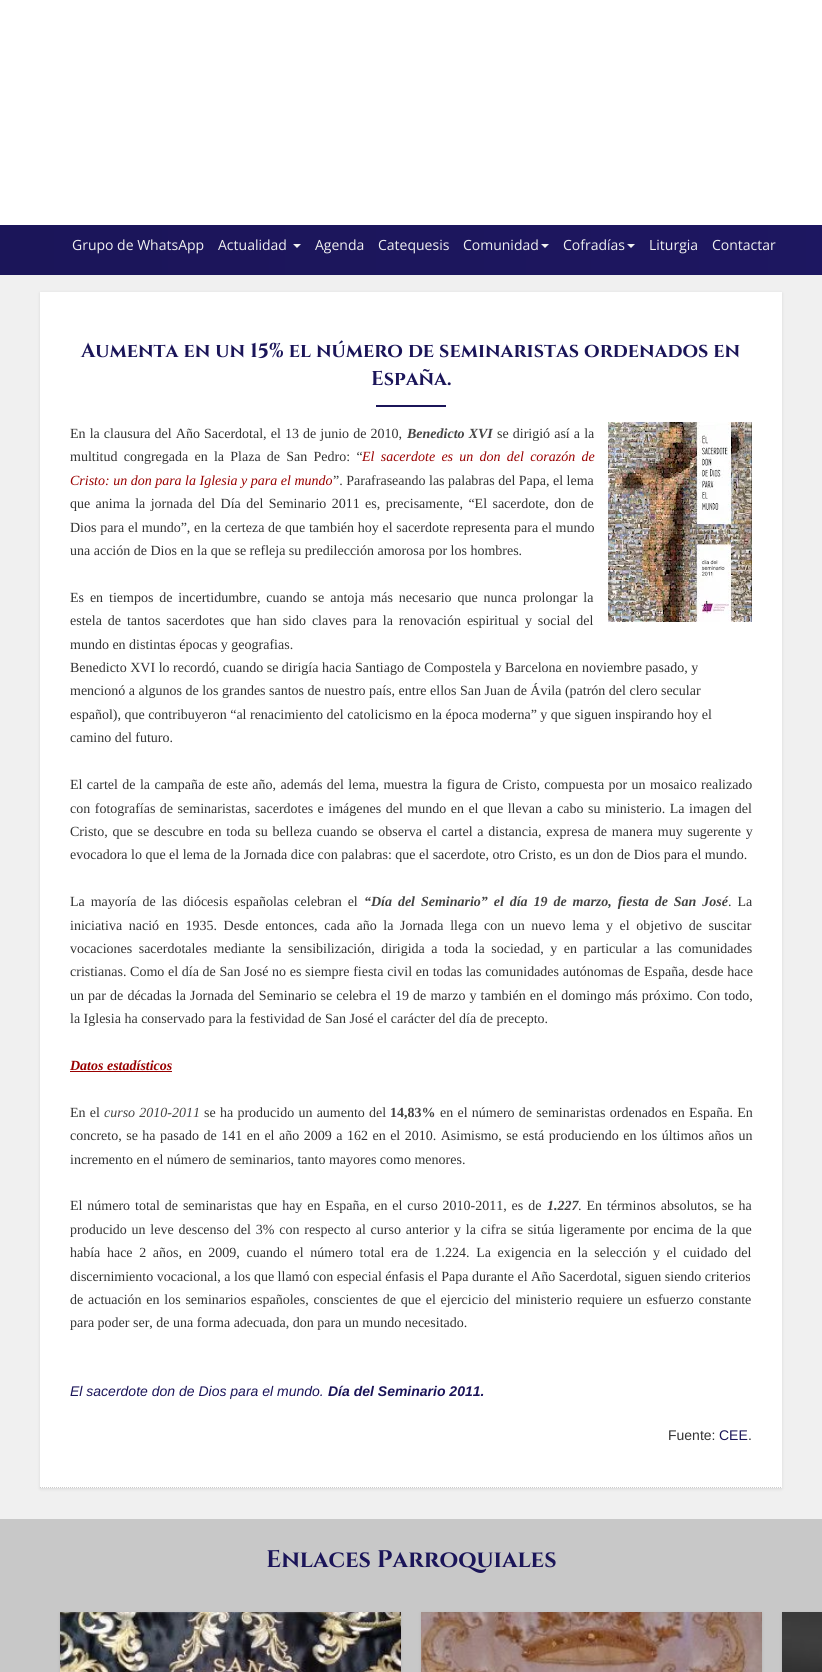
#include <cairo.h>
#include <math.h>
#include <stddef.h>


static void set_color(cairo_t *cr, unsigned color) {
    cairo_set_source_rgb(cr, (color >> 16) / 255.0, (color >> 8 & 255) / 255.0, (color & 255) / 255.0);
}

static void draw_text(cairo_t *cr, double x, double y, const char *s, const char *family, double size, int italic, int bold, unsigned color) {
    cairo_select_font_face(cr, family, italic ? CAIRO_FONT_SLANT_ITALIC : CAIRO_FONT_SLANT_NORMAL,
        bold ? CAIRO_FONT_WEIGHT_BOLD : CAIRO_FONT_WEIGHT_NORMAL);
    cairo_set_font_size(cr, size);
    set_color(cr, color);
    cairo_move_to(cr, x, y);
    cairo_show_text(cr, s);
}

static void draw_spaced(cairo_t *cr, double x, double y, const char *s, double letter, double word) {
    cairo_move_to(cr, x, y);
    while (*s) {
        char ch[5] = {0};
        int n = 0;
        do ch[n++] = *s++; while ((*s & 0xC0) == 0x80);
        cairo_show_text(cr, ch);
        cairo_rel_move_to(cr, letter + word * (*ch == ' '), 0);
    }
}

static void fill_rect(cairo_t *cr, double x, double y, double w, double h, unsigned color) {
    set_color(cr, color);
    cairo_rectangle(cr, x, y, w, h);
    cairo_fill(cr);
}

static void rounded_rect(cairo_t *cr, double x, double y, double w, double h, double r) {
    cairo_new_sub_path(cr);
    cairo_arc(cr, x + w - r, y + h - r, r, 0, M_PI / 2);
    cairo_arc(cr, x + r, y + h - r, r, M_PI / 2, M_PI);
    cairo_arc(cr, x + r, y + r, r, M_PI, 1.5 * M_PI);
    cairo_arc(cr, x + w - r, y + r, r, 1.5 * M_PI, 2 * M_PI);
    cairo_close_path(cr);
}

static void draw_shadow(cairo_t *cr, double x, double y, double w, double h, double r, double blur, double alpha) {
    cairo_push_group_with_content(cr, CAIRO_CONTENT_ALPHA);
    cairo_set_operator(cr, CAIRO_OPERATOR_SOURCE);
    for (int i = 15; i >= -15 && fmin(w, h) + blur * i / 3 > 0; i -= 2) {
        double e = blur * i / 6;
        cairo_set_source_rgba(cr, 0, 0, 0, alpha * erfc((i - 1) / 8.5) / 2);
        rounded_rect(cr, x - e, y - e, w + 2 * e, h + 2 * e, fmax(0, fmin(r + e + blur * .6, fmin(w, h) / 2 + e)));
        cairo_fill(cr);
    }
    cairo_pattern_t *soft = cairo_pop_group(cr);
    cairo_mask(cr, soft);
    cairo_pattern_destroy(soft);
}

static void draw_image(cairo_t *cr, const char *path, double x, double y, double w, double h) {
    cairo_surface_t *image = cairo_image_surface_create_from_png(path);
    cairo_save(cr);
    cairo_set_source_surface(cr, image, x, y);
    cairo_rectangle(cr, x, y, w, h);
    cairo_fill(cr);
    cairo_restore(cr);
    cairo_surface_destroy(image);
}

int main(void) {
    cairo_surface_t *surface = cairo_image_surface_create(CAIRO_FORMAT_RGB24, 822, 1672);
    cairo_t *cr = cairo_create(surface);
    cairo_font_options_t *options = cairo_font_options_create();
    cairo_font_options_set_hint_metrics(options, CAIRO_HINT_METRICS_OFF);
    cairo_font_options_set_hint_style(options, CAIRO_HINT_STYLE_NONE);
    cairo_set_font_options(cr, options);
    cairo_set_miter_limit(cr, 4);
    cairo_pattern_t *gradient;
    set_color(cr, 0xF0F0F0);
    cairo_paint(cr);
    fill_rect(cr, 0, 0, 822, 225, 0xFFFFFF);
    gradient = cairo_pattern_create_linear(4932, 375, 0, 375);
    cairo_pattern_add_color_stop_rgba(gradient, 0, 0.094, 0.322, 0.62, 1);
    cairo_pattern_add_color_stop_rgba(gradient, 0.5, 0.133, 0.102, 0.439, 1);
    cairo_pattern_add_color_stop_rgba(gradient, 1, 0.106, 0.082, 0.349, 1);
    cairo_set_source(cr, gradient);
    cairo_pattern_destroy(gradient);
    cairo_rectangle(cr, 0, 225, 822, 50);
    cairo_fill(cr);
    draw_text(cr, 72, 250, "Grupo de WhatsApp", "Open Sans", 14, 0, 0, 0xF1F1F1);
    draw_text(cr, 218, 250, "Actualidad", "Open Sans", 14, 0, 0, 0xF1F1F1);
    cairo_new_path(cr);
    cairo_move_to(cr, 293, 244);
    cairo_line_to(cr, 301, 244);
    cairo_line_to(cr, 297, 248);
    cairo_close_path(cr);
    cairo_fill(cr);
    draw_text(cr, 315, 250, "Agenda", "Open Sans", 14, 0, 0, 0xF1F1F1);
    draw_text(cr, 378, 250, "Catequesis", "Open Sans", 14, 0, 0, 0xF1F1F1);
    draw_text(cr, 463, 250, "Comunidad", "Open Sans", 14, 0, 0, 0xF1F1F1);
    cairo_new_path(cr);
    cairo_move_to(cr, 541, 244);
    cairo_line_to(cr, 549, 244);
    cairo_line_to(cr, 545, 248);
    cairo_close_path(cr);
    cairo_fill(cr);
    draw_text(cr, 563, 250, "Cofradías", "Open Sans", 14, 0, 0, 0xF1F1F1);
    cairo_new_path(cr);
    cairo_move_to(cr, 627, 244);
    cairo_line_to(cr, 635, 244);
    cairo_line_to(cr, 631, 248);
    cairo_close_path(cr);
    cairo_fill(cr);
    draw_text(cr, 649, 250, "Liturgia", "Open Sans", 14, 0, 0, 0xF1F1F1);
    draw_text(cr, 712, 250, "Contactar", "Open Sans", 14, 0, 0, 0xF1F1F1);
    set_color(cr, 0x000000);
    draw_shadow(cr, 40, 293, 742, 1196, 0, 1.5, 0.1);
    fill_rect(cr, 40, 292, 742, 1196, 0xFFFFFF);
    cairo_new_path(cr);
    cairo_move_to(cr, 40, 1487.5);
    cairo_line_to(cr, 782, 1487.5);
    set_color(cr, 0xCCCCCC);
    cairo_set_line_width(cr, 1);
    cairo_set_dash(cr, (double[]){1, 1}, 2, 0);
    cairo_stroke(cr);
    draw_text(cr, 81, 357, "Aumenta en un 15% el número de seminaristas ordenados en", "Cinzel", 20, 0, 1, 0x1B1559);
    draw_text(cr, 371, 385, "España.", "Cinzel", 20, 0, 1, 0x1B1559);
    fill_rect(cr, 376, 405, 70, 2, 0x1B1559);
    cairo_select_font_face(cr, "Liberation Serif", CAIRO_FONT_SLANT_NORMAL, CAIRO_FONT_WEIGHT_NORMAL);
    cairo_set_font_size(cr, 14);
    set_color(cr, 0x333333);
    draw_spaced(cr, 70, 438, "En la clausura del Año Sacerdotal, el 13 de junio de 2010,", 0, 0.6);
    cairo_select_font_face(cr, "Liberation Serif", CAIRO_FONT_SLANT_ITALIC, CAIRO_FONT_WEIGHT_BOLD);
    set_color(cr, 0x444444);
    draw_spaced(cr, 407, 438, "Benedicto XVI", 0, 0.6);
    cairo_select_font_face(cr, "Liberation Serif", CAIRO_FONT_SLANT_NORMAL, CAIRO_FONT_WEIGHT_NORMAL);
    set_color(cr, 0x333333);
    draw_spaced(cr, 497, 438, "se dirigió así a la", 0, 0.6);
    draw_spaced(cr, 70, 461, "multitud congregada en la Plaza de San Pedro: “", 0, 2.75);
    cairo_select_font_face(cr, "Liberation Serif", CAIRO_FONT_SLANT_ITALIC, CAIRO_FONT_WEIGHT_NORMAL);
    set_color(cr, 0x990000);
    draw_spaced(cr, 362, 461, "El sacerdote es un don del corazón de", 0, 2.75);
    draw_text(cr, 70, 485, "Cristo: un don para la Iglesia y para el mundo", "Liberation Serif", 14, 1, 0, 0x990000);
    draw_text(cr, 333, 485, "”. Parafraseando las palabras del Papa, el lema", "Liberation Serif", 14, 0, 0, 0x333333);
    draw_spaced(cr, 70, 508, "que anima la jornada del Día del Seminario 2011 es, precisamente, “El sacerdote, don de", 0, 1.9);
    draw_spaced(cr, 70, 532, "Dios para el mundo”, en la certeza de que también hoy el sacerdote representa para el mundo", 0, 0.2);
    draw_text(cr, 70, 555, "una acción de Dios en la que se refleja su predilección amorosa por los hombres.", "Liberation Serif", 14, 0, 0, 0x333333);
    draw_image(cr, "assets/img1.png", 608, 422, 144, 200);
    draw_spaced(cr, 70, 602, "Es en tiempos de incertidumbre, cuando se antoja más necesario que nunca prolongar la", 0, 2.4);
    draw_spaced(cr, 70, 625, "estela de tantos sacerdotes que han sido claves para la renovación espiritual y social del", 0, 2.4);
    draw_text(cr, 70, 649, "mundo en distintas épocas y geografias.", "Liberation Serif", 14, 0, 0, 0x333333);
    draw_text(cr, 70, 672, "Benedicto XVI lo recordó, cuando se dirigía hacia Santiago de Compostela y Barcelona en noviembre pasado, y", "Liberation Serif", 14, 0, 0, 0x333333);
    draw_text(cr, 70, 695, "mencionó a algunos de los grandes santos de nuestro país, entre ellos San Juan de Ávila (patrón del clero secular", "Liberation Serif", 14, 0, 0, 0x333333);
    draw_text(cr, 70, 719, "español), que contribuyeron “al renacimiento del catolicismo en la época moderna” y que siguen inspirando hoy el", "Liberation Serif", 14, 0, 0, 0x333333);
    draw_text(cr, 70, 742, "camino del futuro.", "Liberation Serif", 14, 0, 0, 0x333333);
    draw_spaced(cr, 70, 789, "El cartel de la campaña de este año, además del lema, muestra la figura de Cristo, compuesta por un mosaico realizado", 0, 0.9);
    draw_spaced(cr, 70, 813, "con fotografías de seminaristas, sacerdotes e imágenes del mundo en el que llevan a cabo su ministerio. La imagen del", 0, 1);
    draw_spaced(cr, 70, 836, "Cristo, que se descubre en toda su belleza cuando se observa el cartel a distancia, expresa de manera muy sugerente y", 0, 1.25);
    draw_text(cr, 70, 859, "evocadora lo que el lema de la Jornada dice con palabras: que el sacerdote, otro Cristo, es un don de Dios para el mundo.", "Liberation Serif", 14, 0, 0, 0x333333);
    draw_spaced(cr, 70, 906, "La mayoría de las diócesis españolas celebran el", 0, 2.4);
    cairo_select_font_face(cr, "Liberation Serif", CAIRO_FONT_SLANT_ITALIC, CAIRO_FONT_WEIGHT_BOLD);
    set_color(cr, 0x444444);
    draw_spaced(cr, 364, 906, "“Día del Seminario” el día 19 de marzo, fiesta de San José", 0, 2.4);
    cairo_select_font_face(cr, "Liberation Serif", CAIRO_FONT_SLANT_NORMAL, CAIRO_FONT_WEIGHT_NORMAL);
    set_color(cr, 0x333333);
    draw_spaced(cr, 728, 906, ". La", 0, 2.4);
    draw_spaced(cr, 70, 930, "iniciativa nació en 1935. Desde entonces, cada año la Jornada llega con un nuevo lema y el objetivo de suscitar", 0, 3.1);
    draw_spaced(cr, 70, 953, "vocaciones sacerdotales mediante la sensibilización, dirigida a toda la sociedad, y en particular a las comunidades", 0, 3);
    draw_spaced(cr, 70, 976, "cristianas. Como el día de San José no es siempre fiesta civil en todas las comunidades autónomas de España, desde hace", 0, 0.2);
    draw_spaced(cr, 70, 1000, "un par de décadas la Jornada del Seminario se celebra el 19 de marzo y también en el domingo más próximo. Con todo,", 0, 0.6);
    draw_text(cr, 70, 1023, "la Iglesia ha conservado para la festividad de San José el carácter del día de precepto.", "Liberation Serif", 14, 0, 0, 0x333333);
    draw_text(cr, 70, 1070, "Datos estadísticos", "Liberation Serif", 14, 1, 1, 0x990000);
    fill_rect(cr, 70, 1071, 102, 1, 0x990000);
    cairo_select_font_face(cr, "Liberation Serif", CAIRO_FONT_SLANT_NORMAL, CAIRO_FONT_WEIGHT_NORMAL);
    set_color(cr, 0x333333);
    draw_spaced(cr, 70, 1117, "En el", 0, 0.75);
    cairo_select_font_face(cr, "Liberation Serif", CAIRO_FONT_SLANT_ITALIC, CAIRO_FONT_WEIGHT_NORMAL);
    set_color(cr, 0x444444);
    draw_spaced(cr, 104, 1117, "curso 2010-2011", 0, 0.75);
    cairo_select_font_face(cr, "Liberation Serif", CAIRO_FONT_SLANT_NORMAL, CAIRO_FONT_WEIGHT_NORMAL);
    set_color(cr, 0x333333);
    draw_spaced(cr, 204, 1117, "se ha producido un aumento del", 0, 0.75);
    draw_text(cr, 390, 1117, "14,83%", "Liberation Serif", 14, 0, 1, 0x444444);
    cairo_select_font_face(cr, "Liberation Serif", CAIRO_FONT_SLANT_NORMAL, CAIRO_FONT_WEIGHT_NORMAL);
    set_color(cr, 0x333333);
    draw_spaced(cr, 440, 1117, "en el número de seminaristas ordenados en España. En", 0, 0.75);
    draw_spaced(cr, 70, 1140, "concreto, se ha pasado de 141 en el año 2009 a 162 en el 2010. Asimismo, se está produciendo en los últimos años un", 0, 1);
    draw_text(cr, 70, 1164, "incremento en el número de seminarios, tanto mayores como menores.", "Liberation Serif", 14, 0, 0, 0x333333);
    draw_spaced(cr, 70, 1210, "El número total de seminaristas que hay en España, en el curso 2010-2011, es de", 0, 1.4);
    draw_text(cr, 547, 1210, "1.227", "Liberation Serif", 14, 1, 1, 0x444444);
    cairo_select_font_face(cr, "Liberation Serif", CAIRO_FONT_SLANT_NORMAL, CAIRO_FONT_WEIGHT_NORMAL);
    set_color(cr, 0x333333);
    draw_spaced(cr, 578, 1210, ". En términos absolutos, se ha", 0, 1.4);
    draw_spaced(cr, 70, 1234, "producido un leve descenso del 3% con respecto al curso anterior y la cifra se sitúa ligeramente por encima de la que", 0, 1.3);
    draw_spaced(cr, 70, 1257, "había hace 2 años, en 2009, cuando el número total era de 1.224. La exigencia en la selección y el cuidado del", 0, 3.1);
    draw_text(cr, 70, 1281, "discernimiento vocacional, a los que llamó con especial énfasis el Papa durante el Año Sacerdotal, siguen siendo criterios", "Liberation Serif", 14, 0, 0, 0x333333);
    draw_spaced(cr, 70, 1304, "de actuación en los seminarios españoles, conscientes de que el ejercicio del ministerio requiere un esfuerzo constante", 0, 1.25);
    draw_text(cr, 70, 1327, "para poder ser, de una forma adecuada, don para un mundo necesitado.", "Liberation Serif", 14, 0, 0, 0x333333);
    draw_text(cr, 70, 1396, "El sacerdote don de Dios para el mundo.", "Liberation Sans", 14, 1, 0, 0x1B1559);
    draw_text(cr, 328, 1396, "Día del Seminario 2011.", "Liberation Sans", 14, 1, 1, 0x1B1559);
    draw_text(cr, 668, 1440, "Fuente:", "Liberation Sans", 14, 0, 0, 0x333333);
    draw_text(cr, 719, 1440, "CEE", "Liberation Sans", 14, 0, 0, 0x1B1559);
    draw_text(cr, 748, 1440, ".", "Liberation Sans", 14, 0, 0, 0x333333);
    fill_rect(cr, 0, 1519, 822, 153, 0xC8C8C8);
    draw_text(cr, 266, 1567, "Enlaces Parroquiales", "Cinzel", 24, 0, 1, 0x1B1559);
    set_color(cr, 0x000000);
    draw_shadow(cr, 60, 1613, 341, 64, 0, 1.5, 0.1);
    draw_image(cr, "assets/img2.png", 60, 1612, 341, 60);
    draw_shadow(cr, 421, 1613, 341, 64, 0, 1.5, 0.1);
    draw_image(cr, "assets/img3.png", 421, 1612, 341, 60);
    draw_shadow(cr, 782, 1613, 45, 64, 0, 1.5, 0.1);
    draw_image(cr, "assets/img4.png", 782, 1612, 40, 60);
    cairo_surface_write_to_png(surface, "output.png");
    cairo_font_options_destroy(options);
    cairo_destroy(cr);
    cairo_surface_destroy(surface);
    return 0;
}
